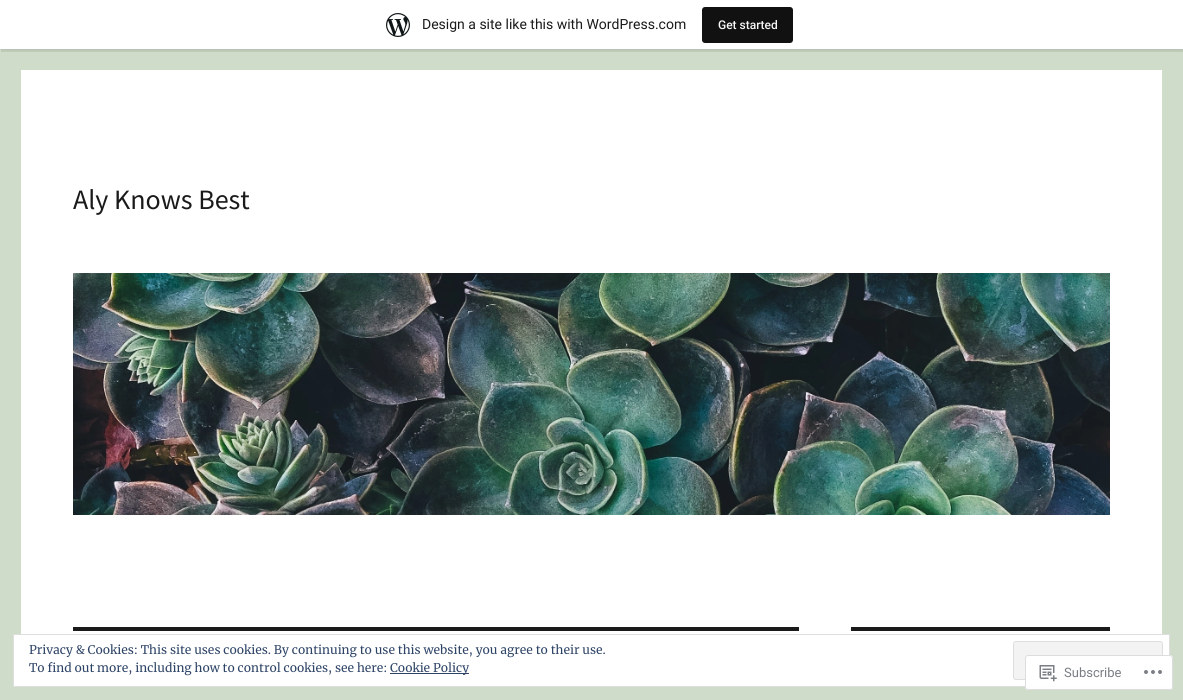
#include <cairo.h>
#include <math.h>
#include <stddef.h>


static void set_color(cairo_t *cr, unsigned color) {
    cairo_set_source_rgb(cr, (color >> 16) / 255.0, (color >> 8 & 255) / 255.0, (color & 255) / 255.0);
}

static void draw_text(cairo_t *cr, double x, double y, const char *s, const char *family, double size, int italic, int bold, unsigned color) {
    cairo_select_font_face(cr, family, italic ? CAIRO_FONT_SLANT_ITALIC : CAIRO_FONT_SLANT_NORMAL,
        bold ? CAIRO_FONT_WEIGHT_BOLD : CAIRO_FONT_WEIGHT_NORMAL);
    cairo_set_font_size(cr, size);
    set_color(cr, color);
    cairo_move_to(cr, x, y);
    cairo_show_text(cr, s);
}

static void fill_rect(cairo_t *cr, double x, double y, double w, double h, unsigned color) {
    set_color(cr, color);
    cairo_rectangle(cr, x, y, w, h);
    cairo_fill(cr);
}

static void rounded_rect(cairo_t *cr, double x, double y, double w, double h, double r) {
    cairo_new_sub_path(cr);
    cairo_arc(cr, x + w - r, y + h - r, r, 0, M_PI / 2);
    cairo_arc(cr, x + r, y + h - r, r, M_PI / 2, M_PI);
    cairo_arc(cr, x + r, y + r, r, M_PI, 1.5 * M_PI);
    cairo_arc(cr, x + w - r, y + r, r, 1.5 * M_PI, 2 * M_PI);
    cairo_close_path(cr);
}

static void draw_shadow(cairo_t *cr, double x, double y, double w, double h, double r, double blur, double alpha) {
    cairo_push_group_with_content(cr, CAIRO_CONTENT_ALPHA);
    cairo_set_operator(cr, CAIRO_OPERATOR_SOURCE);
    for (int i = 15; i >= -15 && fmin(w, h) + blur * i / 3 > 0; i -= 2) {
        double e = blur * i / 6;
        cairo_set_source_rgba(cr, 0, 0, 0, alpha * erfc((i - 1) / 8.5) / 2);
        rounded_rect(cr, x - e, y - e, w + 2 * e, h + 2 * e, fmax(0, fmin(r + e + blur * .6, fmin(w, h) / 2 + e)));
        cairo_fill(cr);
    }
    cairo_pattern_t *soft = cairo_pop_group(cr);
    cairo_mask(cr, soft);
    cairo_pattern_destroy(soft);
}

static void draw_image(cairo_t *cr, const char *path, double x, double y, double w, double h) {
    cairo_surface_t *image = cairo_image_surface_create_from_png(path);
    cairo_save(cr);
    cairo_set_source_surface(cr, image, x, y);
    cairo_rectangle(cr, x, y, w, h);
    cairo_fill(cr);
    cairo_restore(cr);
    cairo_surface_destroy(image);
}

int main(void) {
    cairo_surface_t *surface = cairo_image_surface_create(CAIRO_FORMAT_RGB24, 1183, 700);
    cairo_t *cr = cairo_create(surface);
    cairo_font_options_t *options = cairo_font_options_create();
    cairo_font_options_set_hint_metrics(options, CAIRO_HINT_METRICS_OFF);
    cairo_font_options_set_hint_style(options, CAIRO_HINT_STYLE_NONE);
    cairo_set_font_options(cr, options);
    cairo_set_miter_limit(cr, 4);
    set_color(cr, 0xD0DCCA);
    cairo_paint(cr);
    set_color(cr, 0x000000);
    draw_shadow(cr, 0, 1, 1183, 49, 0, 1, 0.05);
    cairo_set_source_rgba(cr, 0, 0, 0, 0.08);
    cairo_new_path(cr);
    cairo_move_to(cr, 1, 49);
    cairo_line_to(cr, 1, 52);
    cairo_line_to(cr, 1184, 52);
    cairo_line_to(cr, 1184, 3);
    cairo_line_to(cr, 1183, 3);
    cairo_line_to(cr, 1183, 49);
    cairo_close_path(cr);
    cairo_fill(cr);
    fill_rect(cr, 0, 0, 1183, 49, 0xFFFFFF);
    draw_image(cr, "assets/img1.png", 386, 13, 24, 24);
    draw_text(cr, 422, 29, "Design a site like this with WordPress.com", "Roboto", 14, 0, 0, 0x1A1A1A);
    set_color(cr, 0x111111);
    rounded_rect(cr, 702, 7, 91, 36, 3);
    cairo_fill(cr);
    draw_text(cr, 718, 29, "Get started", "Roboto Medium", 12, 0, 0, 0xF6F7F7);
    fill_rect(cr, 21, 70, 1141, 564, 0xFFFFFF);
    draw_text(cr, 73, 209, "Aly Knows Best", "Source Sans Pro", 28, 0, 0, 0x1A1A1A);
    draw_image(cr, "assets/img2.png", 73, 273, 1037, 242);
    fill_rect(cr, 73, 627, 726, 4, 0x1A1A1A);
    fill_rect(cr, 851, 627, 259, 4, 0x1A1A1A);
    set_color(cr, 0xFFFFFF);
    cairo_rectangle(cr, 13.5, 634.5, 1156, 52);
    cairo_fill_preserve(cr);
    set_color(cr, 0xDEDEDE);
    cairo_set_line_width(cr, 1);
    cairo_stroke(cr);
    draw_text(cr, 29, 654, "Privacy & Cookies: This site uses cookies. By continuing to use this website, you agree to their use.", "Merriweather", 12, 0, 0, 0x2E4467);
    set_color(cr, 0xF3F3F3);
    rounded_rect(cr, 1013.5, 641.5, 149, 38, 2.5);
    cairo_fill_preserve(cr);
    set_color(cr, 0xDEDEDE);
    cairo_stroke(cr);
    draw_text(cr, 29, 672, "To find out more, including how to control cookies, see here:", "Merriweather", 12, 0, 0, 0x2E4467);
    fill_rect(cr, 390, 673, 79, 1, 0x2E4467);
    draw_text(cr, 390, 672, "Cookie Policy", "Merriweather", 12, 0, 0, 0x2E4467);
    cairo_set_source_rgba(cr, 1, 1, 1, 0.98);
    rounded_rect(cr, 1025, 655, 148, 35, 3);
    cairo_fill(cr);
    rounded_rect(cr, 1025.5, 655.5, 147, 34, 2.5);
    cairo_set_source_rgba(cr, 0.863, 0.863, 0.871, 0.98);
    cairo_stroke(cr);
    draw_image(cr, "assets/img3.png", 1039, 665, 18, 17);
    draw_text(cr, 1064, 677, "Subscribe", "Roboto", 13, 0, 0, 0x7A7E84);
    draw_image(cr, "assets/img4.png", 1144, 670, 18, 4);
    cairo_surface_write_to_png(surface, "output.png");
    cairo_font_options_destroy(options);
    cairo_destroy(cr);
    cairo_surface_destroy(surface);
    return 0;
}
